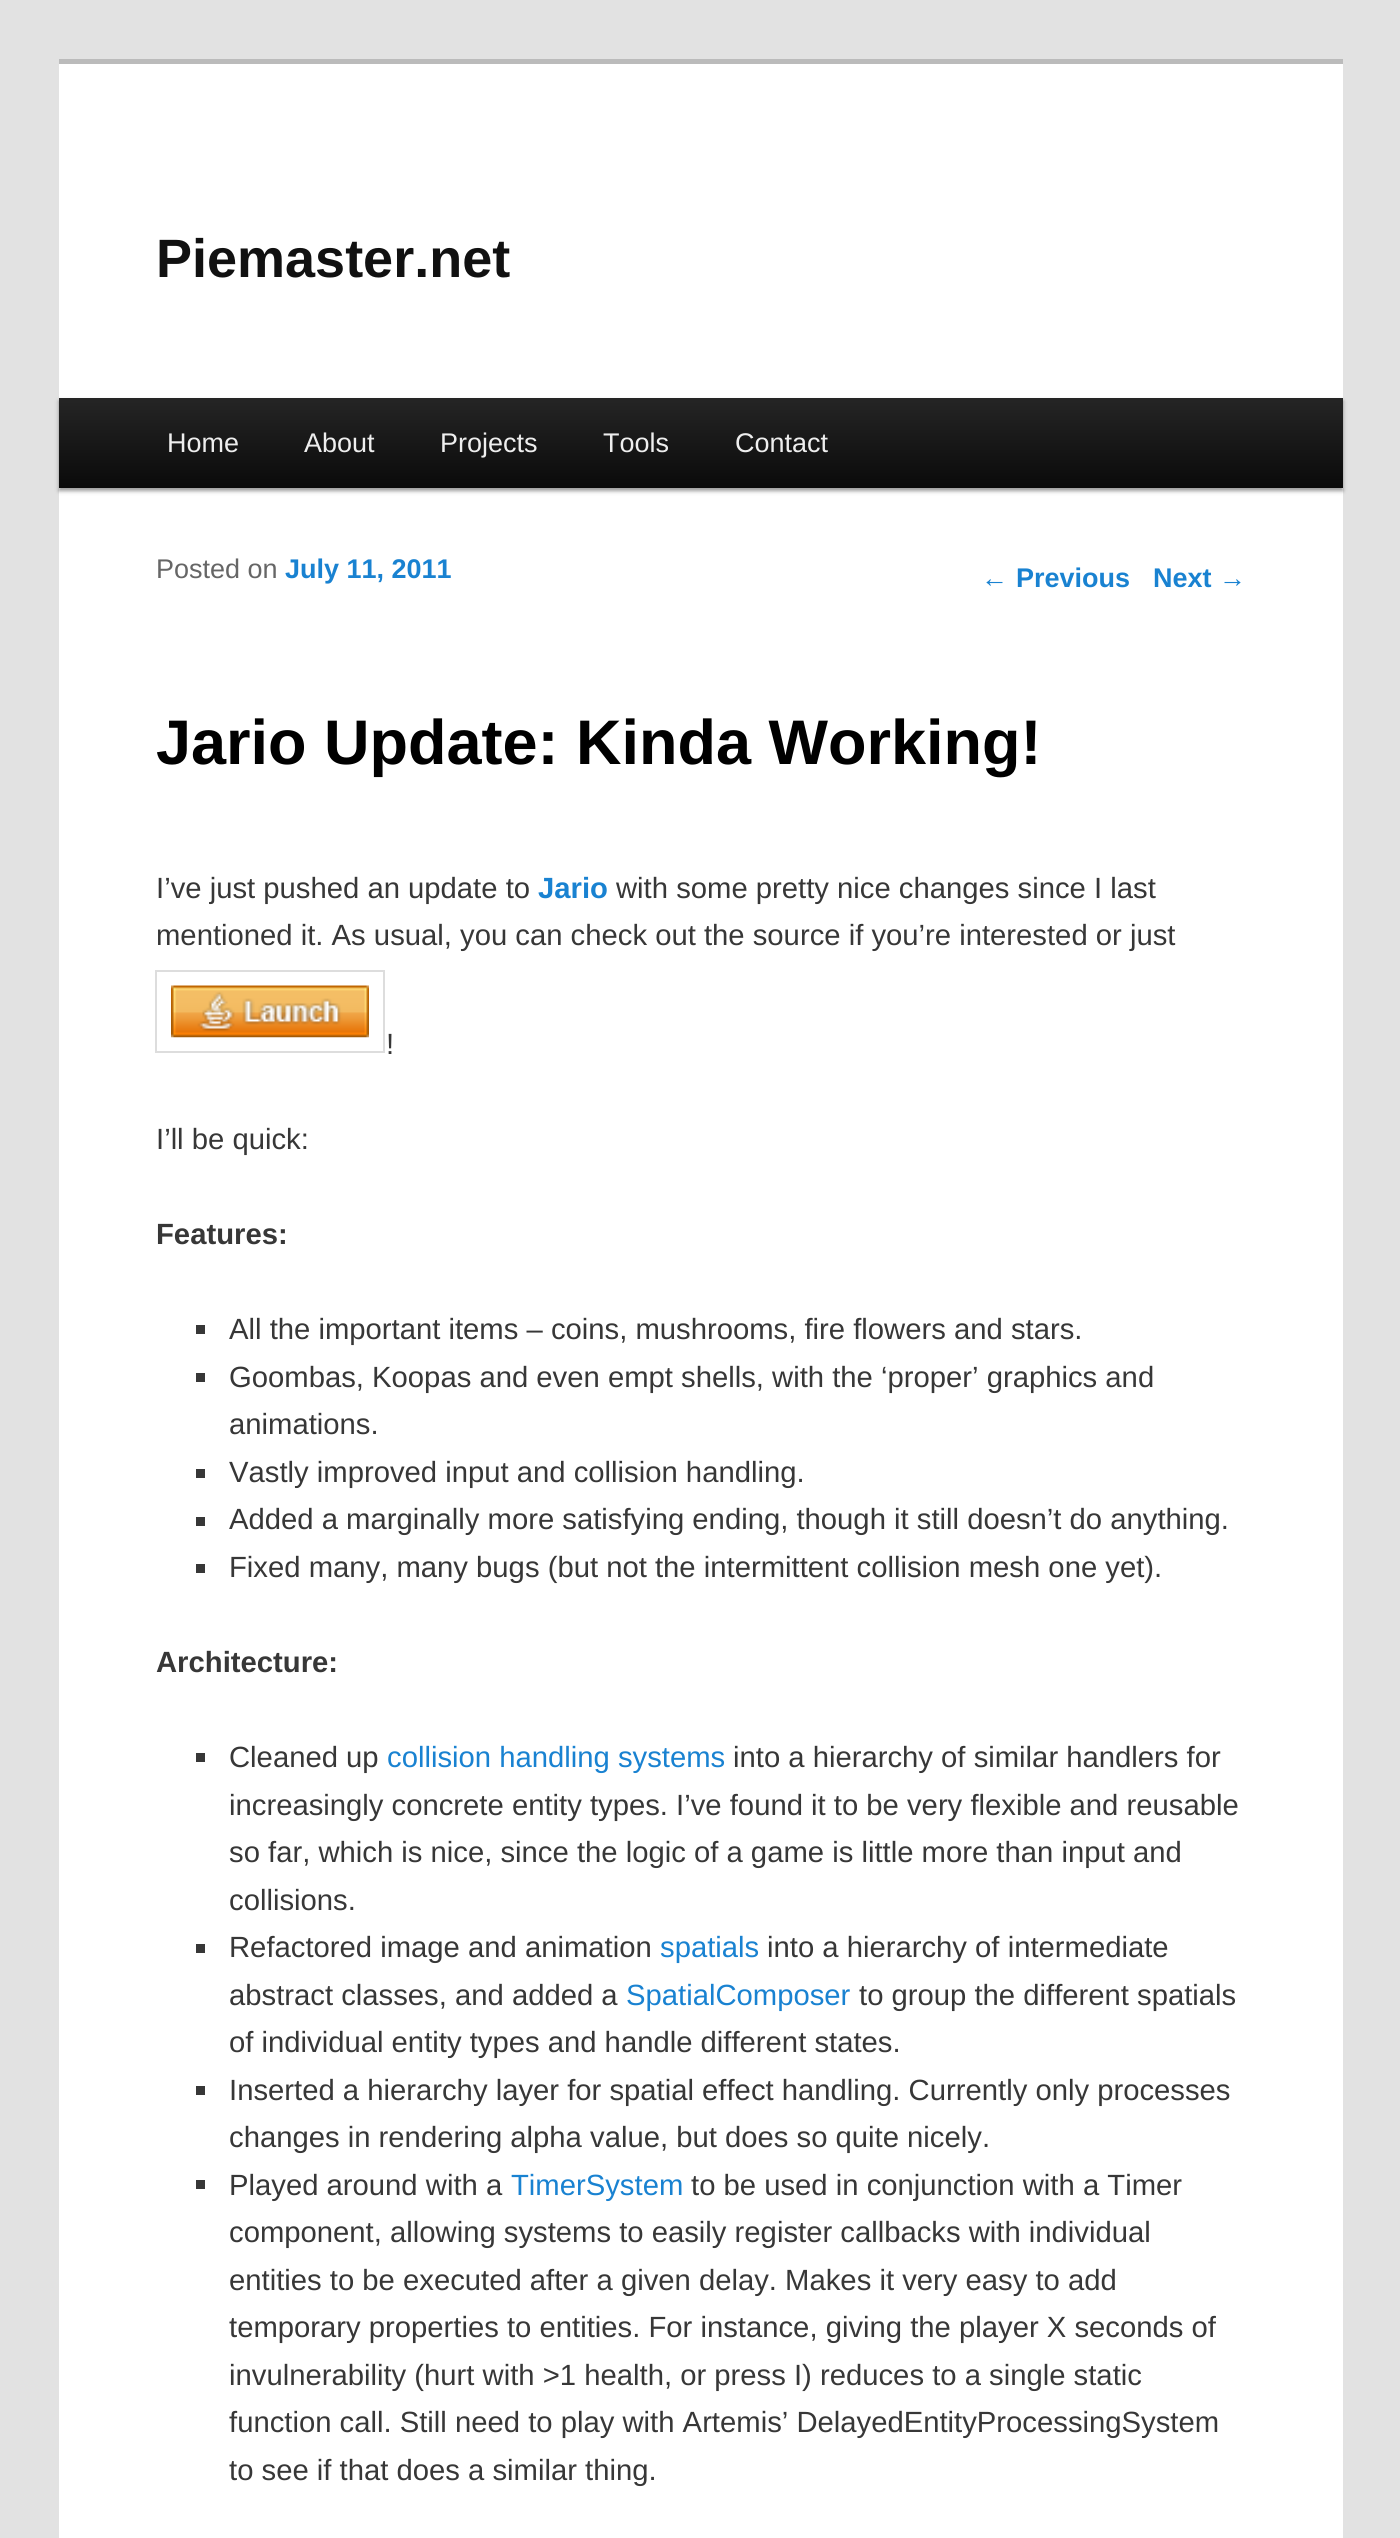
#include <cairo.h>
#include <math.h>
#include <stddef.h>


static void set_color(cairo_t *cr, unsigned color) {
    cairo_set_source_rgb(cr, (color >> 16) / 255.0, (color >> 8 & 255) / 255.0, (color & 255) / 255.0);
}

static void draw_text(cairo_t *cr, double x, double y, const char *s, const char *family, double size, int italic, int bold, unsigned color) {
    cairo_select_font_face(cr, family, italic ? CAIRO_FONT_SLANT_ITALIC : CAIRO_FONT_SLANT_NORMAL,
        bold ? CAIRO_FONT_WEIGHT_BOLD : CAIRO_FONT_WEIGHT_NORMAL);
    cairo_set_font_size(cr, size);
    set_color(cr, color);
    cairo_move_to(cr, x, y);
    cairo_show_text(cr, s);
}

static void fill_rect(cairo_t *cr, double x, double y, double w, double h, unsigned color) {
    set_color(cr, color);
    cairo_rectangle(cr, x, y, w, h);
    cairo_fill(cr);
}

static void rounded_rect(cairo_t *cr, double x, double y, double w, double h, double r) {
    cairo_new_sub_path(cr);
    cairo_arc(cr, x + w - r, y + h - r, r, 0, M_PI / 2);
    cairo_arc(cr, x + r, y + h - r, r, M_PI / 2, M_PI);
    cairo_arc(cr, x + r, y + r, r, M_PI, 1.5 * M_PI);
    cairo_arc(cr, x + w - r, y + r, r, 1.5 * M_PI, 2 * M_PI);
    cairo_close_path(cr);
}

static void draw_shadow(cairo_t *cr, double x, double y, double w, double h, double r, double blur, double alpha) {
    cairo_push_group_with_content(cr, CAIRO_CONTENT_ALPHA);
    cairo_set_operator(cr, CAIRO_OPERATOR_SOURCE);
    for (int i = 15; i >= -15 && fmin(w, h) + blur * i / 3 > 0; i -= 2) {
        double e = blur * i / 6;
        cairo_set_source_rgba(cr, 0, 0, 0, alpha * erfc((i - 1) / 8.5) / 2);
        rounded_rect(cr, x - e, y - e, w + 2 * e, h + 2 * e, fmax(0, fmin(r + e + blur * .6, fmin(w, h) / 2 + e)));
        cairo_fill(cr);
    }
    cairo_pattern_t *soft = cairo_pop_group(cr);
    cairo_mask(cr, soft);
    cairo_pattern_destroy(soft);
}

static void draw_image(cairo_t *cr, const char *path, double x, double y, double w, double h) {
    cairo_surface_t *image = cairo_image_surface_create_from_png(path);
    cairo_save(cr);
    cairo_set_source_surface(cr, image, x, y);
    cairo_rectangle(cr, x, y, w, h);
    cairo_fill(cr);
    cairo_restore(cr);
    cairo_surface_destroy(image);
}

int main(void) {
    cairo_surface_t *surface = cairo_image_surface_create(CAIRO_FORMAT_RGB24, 1400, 2538);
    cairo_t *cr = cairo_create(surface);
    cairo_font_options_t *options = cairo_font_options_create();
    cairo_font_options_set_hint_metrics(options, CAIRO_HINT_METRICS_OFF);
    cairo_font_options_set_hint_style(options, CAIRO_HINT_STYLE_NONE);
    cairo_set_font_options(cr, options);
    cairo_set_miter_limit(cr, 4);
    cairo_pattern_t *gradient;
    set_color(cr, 0xE2E2E2);
    cairo_paint(cr);
    fill_rect(cr, 59, 64, 1284, 2474, 0xFFFFFF);
    fill_rect(cr, 59, 59, 1284, 5, 0xBBBBBB);
    draw_text(cr, 156, 277, "Piemaster.net", "Liberation Sans", 54, 0, 1, 0x111111);
    set_color(cr, 0x000000);
    draw_shadow(cr, 59, 401, 1284, 90, 0, 2, 0.4);
    gradient = cairo_pattern_create_linear(701, 398, 701, 488);
    cairo_pattern_add_color_stop_rgba(gradient, 0, 0.145, 0.145, 0.145, 1);
    cairo_pattern_add_color_stop_rgba(gradient, 1, 0.039, 0.039, 0.039, 1);
    cairo_set_source(cr, gradient);
    cairo_pattern_destroy(gradient);
    cairo_rectangle(cr, 59, 398, 1284, 90);
    cairo_fill(cr);
    draw_text(cr, 167, 452, "Home", "Liberation Sans", 27, 0, 0, 0xEEEEEE);
    draw_text(cr, 304, 452, "About", "Liberation Sans", 27, 0, 0, 0xEEEEEE);
    draw_text(cr, 440, 452, "Projects", "Liberation Sans", 27, 0, 0, 0xEEEEEE);
    draw_text(cr, 603, 452, "Tools", "Liberation Sans", 27, 0, 0, 0xEEEEEE);
    draw_text(cr, 735, 452, "Contact", "Liberation Sans", 27, 0, 0, 0xEEEEEE);
    draw_text(cr, 156, 578, "Posted on", "Liberation Sans", 27, 0, 0, 0x666666);
    draw_text(cr, 285, 578, "July 11, 2011", "Liberation Sans", 27, 0, 1, 0x1982D1);
    draw_text(cr, 156, 764, "Jario Update: Kinda Working!", "Liberation Sans", 63, 0, 1, 0x000000);
    draw_text(cr, 156, 898, "I’ve just pushed an update to", "Liberation Sans", 29.25, 0, 0, 0x373737);
    draw_text(cr, 538, 898, "Jario", "Liberation Sans", 29.25, 0, 1, 0x1982D1);
    draw_text(cr, 616, 898, "with some pretty nice changes since I last", "Liberation Sans", 29.25, 0, 0, 0x373737);
    draw_text(cr, 156, 945, "mentioned it. As usual, you can check out the source if you’re interested or just", "Liberation Sans", 29.25, 0, 0, 0x373737);
    cairo_rectangle(cr, 156, 971, 228, 81);
    set_color(cr, 0xDDDDDD);
    cairo_stroke(cr);
    draw_image(cr, "assets/img1.png", 171, 985, 198, 53);
    draw_text(cr, 386, 1054, "!", "Liberation Sans", 29.25, 0, 0, 0x373737);
    draw_text(cr, 156, 1149, "I’ll be quick:", "Liberation Sans", 29.25, 0, 0, 0x373737);
    draw_text(cr, 156, 1244, "Features:", "Liberation Sans", 29.25, 0, 1, 0x373737);
    fill_rect(cr, 196, 1325, 9, 9, 0x373737);
    draw_text(cr, 229, 1339, "All the important items – coins, mushrooms, fire flowers and stars.", "Liberation Sans", 29.25, 0, 0, 0x373737);
    fill_rect(cr, 196, 1373, 9, 9, 0x373737);
    draw_text(cr, 229, 1387, "Goombas, Koopas and even empt shells, with the ‘proper’ graphics and", "Liberation Sans", 29.25, 0, 0, 0x373737);
    draw_text(cr, 229, 1434, "animations.", "Liberation Sans", 29.25, 0, 0, 0x373737);
    fill_rect(cr, 196, 1469, 9, 9, 0x373737);
    draw_text(cr, 229, 1482, "Vastly improved input and collision handling.", "Liberation Sans", 29.25, 0, 0, 0x373737);
    fill_rect(cr, 196, 1517, 9, 9, 0x373737);
    draw_text(cr, 229, 1529, "Added a marginally more satisfying ending, though it still doesn’t do anything.", "Liberation Sans", 29.25, 0, 0, 0x373737);
    fill_rect(cr, 196, 1564, 9, 9, 0x373737);
    draw_text(cr, 229, 1577, "Fixed many, many bugs (but not the intermittent collision mesh one yet).", "Liberation Sans", 29.25, 0, 0, 0x373737);
    draw_text(cr, 156, 1672, "Architecture:", "Liberation Sans", 29.25, 0, 1, 0x373737);
    fill_rect(cr, 196, 1753, 9, 9, 0x373737);
    draw_text(cr, 229, 1767, "Cleaned up", "Liberation Sans", 29.25, 0, 0, 0x373737);
    draw_text(cr, 387, 1767, "collision handling systems", "Liberation Sans", 29.25, 0, 0, 0x1982D1);
    draw_text(cr, 733, 1767, "into a hierarchy of similar handlers for", "Liberation Sans", 29.25, 0, 0, 0x373737);
    draw_text(cr, 229, 1815, "increasingly concrete entity types. I’ve found it to be very flexible and reusable", "Liberation Sans", 29.25, 0, 0, 0x373737);
    draw_text(cr, 229, 1862, "so far, which is nice, since the logic of a game is little more than input and", "Liberation Sans", 29.25, 0, 0, 0x373737);
    draw_text(cr, 229, 1910, "collisions.", "Liberation Sans", 29.25, 0, 0, 0x373737);
    fill_rect(cr, 196, 1944, 9, 9, 0x373737);
    draw_text(cr, 229, 1957, "Refactored image and animation", "Liberation Sans", 29.25, 0, 0, 0x373737);
    draw_text(cr, 660, 1957, "spatials", "Liberation Sans", 29.25, 0, 0, 0x1982D1);
    draw_text(cr, 767, 1957, "into a hierarchy of intermediate", "Liberation Sans", 29.25, 0, 0, 0x373737);
    draw_text(cr, 229, 2005, "abstract classes, and added a", "Liberation Sans", 29.25, 0, 0, 0x373737);
    draw_text(cr, 626, 2005, "SpatialComposer", "Liberation Sans", 29.25, 0, 0, 0x1982D1);
    draw_text(cr, 859, 2005, "to group the different spatials", "Liberation Sans", 29.25, 0, 0, 0x373737);
    draw_text(cr, 229, 2052, "of individual entity types and handle different states.", "Liberation Sans", 29.25, 0, 0, 0x373737);
    fill_rect(cr, 196, 2086, 9, 9, 0x373737);
    draw_text(cr, 229, 2100, "Inserted a hierarchy layer for spatial effect handling. Currently only processes", "Liberation Sans", 29.25, 0, 0, 0x373737);
    draw_text(cr, 229, 2147, "changes in rendering alpha value, but does so quite nicely.", "Liberation Sans", 29.25, 0, 0, 0x373737);
    fill_rect(cr, 196, 2180, 9, 9, 0x373737);
    draw_text(cr, 229, 2195, "Played around with a", "Liberation Sans", 29.25, 0, 0, 0x373737);
    draw_text(cr, 511, 2195, "TimerSystem", "Liberation Sans", 29.25, 0, 0, 0x1982D1);
    draw_text(cr, 691, 2195, "to be used in conjunction with a Timer", "Liberation Sans", 29.25, 0, 0, 0x373737);
    draw_text(cr, 229, 2242, "component, allowing systems to easily register callbacks with individual", "Liberation Sans", 29.25, 0, 0, 0x373737);
    draw_text(cr, 229, 2290, "entities to be executed after a given delay. Makes it very easy to add", "Liberation Sans", 29.25, 0, 0, 0x373737);
    draw_text(cr, 229, 2337, "temporary properties to entities. For instance, giving the player X seconds of", "Liberation Sans", 29.25, 0, 0, 0x373737);
    draw_text(cr, 229, 2385, "invulnerability (hurt with >1 health, or press I) reduces to a single static", "Liberation Sans", 29.25, 0, 0, 0x373737);
    draw_text(cr, 229, 2432, "function call. Still need to play with Artemis’ DelayedEntityProcessingSystem", "Liberation Sans", 29.25, 0, 0, 0x373737);
    draw_text(cr, 229, 2480, "to see if that does a similar thing.", "Liberation Sans", 29.25, 0, 0, 0x373737);
    draw_text(cr, 981, 587, "←", "Liberation Sans", 27, 0, 0, 0x1982D1);
    draw_text(cr, 1016, 587, "Previous", "Liberation Sans", 27, 0, 1, 0x1982D1);
    draw_text(cr, 1153, 587, "Next", "Liberation Sans", 27, 0, 1, 0x1982D1);
    draw_text(cr, 1219, 587, "→", "Liberation Sans", 27, 0, 0, 0x1982D1);
    cairo_surface_write_to_png(surface, "output.png");
    cairo_font_options_destroy(options);
    cairo_destroy(cr);
    cairo_surface_destroy(surface);
    return 0;
}
